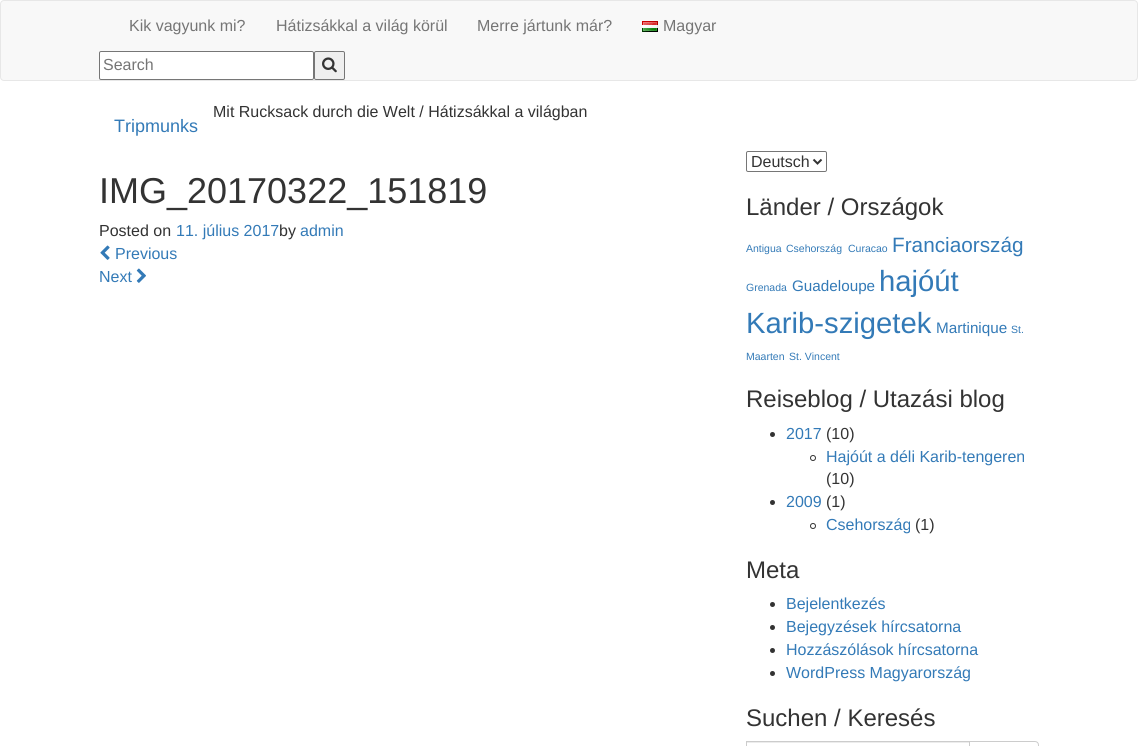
#include <cairo.h>
#include <math.h>
#include <stddef.h>


static void set_color(cairo_t *cr, unsigned color) {
    cairo_set_source_rgb(cr, (color >> 16) / 255.0, (color >> 8 & 255) / 255.0, (color & 255) / 255.0);
}

static void draw_text(cairo_t *cr, double x, double y, const char *s, const char *family, double size, int italic, int bold, unsigned color) {
    cairo_select_font_face(cr, family, italic ? CAIRO_FONT_SLANT_ITALIC : CAIRO_FONT_SLANT_NORMAL,
        bold ? CAIRO_FONT_WEIGHT_BOLD : CAIRO_FONT_WEIGHT_NORMAL);
    cairo_set_font_size(cr, size);
    set_color(cr, color);
    cairo_move_to(cr, x, y);
    cairo_show_text(cr, s);
}

static void fill_rect(cairo_t *cr, double x, double y, double w, double h, unsigned color) {
    set_color(cr, color);
    cairo_rectangle(cr, x, y, w, h);
    cairo_fill(cr);
}

static void rounded_rect(cairo_t *cr, double x, double y, double w, double h, double r) {
    cairo_new_sub_path(cr);
    cairo_arc(cr, x + w - r, y + h - r, r, 0, M_PI / 2);
    cairo_arc(cr, x + r, y + h - r, r, M_PI / 2, M_PI);
    cairo_arc(cr, x + r, y + r, r, M_PI, 1.5 * M_PI);
    cairo_arc(cr, x + w - r, y + r, r, 1.5 * M_PI, 2 * M_PI);
    cairo_close_path(cr);
}

static void draw_image(cairo_t *cr, const char *path, double x, double y, double w, double h) {
    cairo_surface_t *image = cairo_image_surface_create_from_png(path);
    cairo_save(cr);
    cairo_set_source_surface(cr, image, x, y);
    cairo_rectangle(cr, x, y, w, h);
    cairo_fill(cr);
    cairo_restore(cr);
    cairo_surface_destroy(image);
}

int main(void) {
    cairo_surface_t *surface = cairo_image_surface_create(CAIRO_FORMAT_RGB24, 1138, 746);
    cairo_t *cr = cairo_create(surface);
    cairo_font_options_t *options = cairo_font_options_create();
    cairo_font_options_set_hint_metrics(options, CAIRO_HINT_METRICS_OFF);
    cairo_font_options_set_hint_style(options, CAIRO_HINT_STYLE_NONE);
    cairo_set_font_options(cr, options);
    cairo_set_miter_limit(cr, 4);
    set_color(cr, 0xFFFFFF);
    cairo_paint(cr);
    set_color(cr, 0xF8F8F8);
    rounded_rect(cr, 0.5, 0.5, 1137, 80, 3.5);
    cairo_fill_preserve(cr);
    set_color(cr, 0xE7E7E7);
    cairo_set_line_width(cr, 1);
    cairo_stroke(cr);
    draw_text(cr, 129, 31, "Kik vagyunk mi?", "Liberation Sans", 16, 0, 0, 0x757575);
    draw_text(cr, 276, 31, "Hátizsákkal a világ körül", "Liberation Sans", 16, 0, 0, 0x757575);
    draw_text(cr, 477, 31, "Merre jártunk már?", "Liberation Sans", 16, 0, 0, 0x757575);
    draw_image(cr, "assets/img1.png", 642, 21, 16, 11);
    draw_text(cr, 663, 31, "Magyar", "Liberation Sans", 16, 0, 0, 0x757575);
    set_color(cr, 0xFFFFFF);
    rounded_rect(cr, 99.5, 51.5, 214, 28, 1.5);
    cairo_fill_preserve(cr);
    set_color(cr, 0x767676);
    cairo_stroke(cr);
    draw_text(cr, 103, 70, "Search", "Liberation Sans", 16, 0, 0, 0x757575);
    set_color(cr, 0xEFEFEF);
    rounded_rect(cr, 314.5, 51.5, 30, 28, 1.5);
    cairo_fill_preserve(cr);
    set_color(cr, 0x767676);
    cairo_stroke(cr);
    draw_image(cr, "assets/img2.png", 322, 57, 15, 16);
    draw_text(cr, 213, 117, "Mit Rucksack durch die Welt / Hátizsákkal a világban", "Liberation Sans", 16, 0, 0, 0x333333);
    draw_text(cr, 114, 132, "Tripmunks", "Liberation Sans", 18, 0, 0, 0x337AB7);
    draw_text(cr, 99, 203, "IMG_20170322_151819", "Liberation Sans", 36, 0, 0, 0x333333);
    draw_text(cr, 99, 236, "Posted on", "Liberation Sans", 16, 0, 0, 0x333333);
    draw_text(cr, 176, 236, "11. július 2017", "Liberation Sans", 16, 0, 0, 0x337AB7);
    draw_text(cr, 279, 236, "by", "Liberation Sans", 16, 0, 0, 0x333333);
    draw_text(cr, 300, 236, "admin", "Liberation Sans", 16, 0, 0, 0x337AB7);
    draw_image(cr, "assets/img3.png", 100, 245, 10, 15);
    draw_text(cr, 115, 259, "Previous", "Liberation Sans", 16, 0, 0, 0x337AB7);
    draw_text(cr, 99, 282, "Next", "Liberation Sans", 16, 0, 0, 0x337AB7);
    draw_image(cr, "assets/img4.png", 136, 268, 10, 15);
    rounded_rect(cr, 746.5, 151.5, 80, 20, 1.5);
    set_color(cr, 0x767676);
    cairo_stroke(cr);
    cairo_new_path(cr);
    cairo_move_to(cr, 813.5, 159.5);
    cairo_line_to(cr, 817.5, 163.5);
    cairo_line_to(cr, 821.5, 159.5);
    set_color(cr, 0x333333);
    cairo_set_line_width(cr, 2);
    cairo_stroke(cr);
    draw_text(cr, 751, 167, "Deutsch", "Liberation Sans", 16, 0, 0, 0x333333);
    draw_text(cr, 746, 215, "Länder / Országok", "Liberation Sans", 24, 0, 0, 0x333333);
    draw_text(cr, 746, 252, "Antigua", "Liberation Sans", 10.5, 0, 0, 0x337AB7);
    draw_text(cr, 786, 252, "Csehország", "Liberation Sans", 10.5, 0, 0, 0x337AB7);
    draw_text(cr, 848, 252, "Curacao", "Liberation Sans", 10.5, 0, 0, 0x337AB7);
    draw_text(cr, 892, 252, "Franciaország", "Liberation Sans", 20.75, 0, 0, 0x337AB7);
    draw_text(cr, 746, 291, "Grenada", "Liberation Sans", 10.5, 0, 0, 0x337AB7);
    draw_text(cr, 792, 291, "Guadeloupe", "Liberation Sans", 15.25, 0, 0, 0x337AB7);
    draw_text(cr, 879, 291, "hajóút", "Liberation Sans", 29.25, 0, 0, 0x337AB7);
    draw_text(cr, 746, 333, "Karib-szigetek", "Liberation Sans", 29.25, 0, 0, 0x337AB7);
    draw_text(cr, 936, 333, "Martinique", "Liberation Sans", 15.25, 0, 0, 0x337AB7);
    draw_text(cr, 1011, 333, "St.", "Liberation Sans", 10.5, 0, 0, 0x337AB7);
    draw_text(cr, 746, 360, "Maarten", "Liberation Sans", 10.5, 0, 0, 0x337AB7);
    draw_text(cr, 789, 360, "St. Vincent", "Liberation Sans", 10.5, 0, 0, 0x337AB7);
    draw_text(cr, 746, 407, "Reiseblog / Utazási blog", "Liberation Sans", 24, 0, 0, 0x333333);
    cairo_new_path(cr);
    cairo_arc(cr, 772.5, 434.5, 2.5, 0, 2 * M_PI);
    cairo_fill(cr);
    draw_text(cr, 786, 439, "2017", "Liberation Sans", 16, 0, 0, 0x337AB7);
    draw_text(cr, 826, 439, "(10)", "Liberation Sans", 16, 0, 0, 0x333333);
    cairo_new_path(cr);
    cairo_arc(cr, 813, 458, 2.5, 0, 2 * M_PI);
    cairo_set_line_width(cr, 1);
    cairo_stroke(cr);
    draw_text(cr, 826, 462, "Hajóút a déli Karib-tengeren", "Liberation Sans", 16, 0, 0, 0x337AB7);
    draw_text(cr, 826, 484, "(10)", "Liberation Sans", 16, 0, 0, 0x333333);
    cairo_new_path(cr);
    cairo_arc(cr, 772.5, 502.5, 2.5, 0, 2 * M_PI);
    cairo_fill(cr);
    draw_text(cr, 786, 507, "2009", "Liberation Sans", 16, 0, 0, 0x337AB7);
    draw_text(cr, 826, 507, "(1)", "Liberation Sans", 16, 0, 0, 0x333333);
    cairo_new_path(cr);
    cairo_arc(cr, 813, 526, 2.5, 0, 2 * M_PI);
    cairo_stroke(cr);
    draw_text(cr, 826, 530, "Csehország", "Liberation Sans", 16, 0, 0, 0x337AB7);
    draw_text(cr, 915, 530, "(1)", "Liberation Sans", 16, 0, 0, 0x333333);
    draw_text(cr, 746, 578, "Meta", "Liberation Sans", 24, 0, 0, 0x333333);
    cairo_new_path(cr);
    cairo_arc(cr, 772.5, 604.5, 2.5, 0, 2 * M_PI);
    cairo_fill(cr);
    draw_text(cr, 786, 609, "Bejelentkezés", "Liberation Sans", 16, 0, 0, 0x337AB7);
    set_color(cr, 0x333333);
    cairo_new_path(cr);
    cairo_arc(cr, 772.5, 627.5, 2.5, 0, 2 * M_PI);
    cairo_fill(cr);
    draw_text(cr, 786, 632, "Bejegyzések hírcsatorna", "Liberation Sans", 16, 0, 0, 0x337AB7);
    set_color(cr, 0x333333);
    cairo_new_path(cr);
    cairo_arc(cr, 772.5, 650.5, 2.5, 0, 2 * M_PI);
    cairo_fill(cr);
    draw_text(cr, 786, 655, "Hozzászólások hírcsatorna", "Liberation Sans", 16, 0, 0, 0x337AB7);
    set_color(cr, 0x333333);
    cairo_new_path(cr);
    cairo_arc(cr, 772.5, 673.5, 2.5, 0, 2 * M_PI);
    cairo_fill(cr);
    draw_text(cr, 786, 678, "WordPress Magyarország", "Liberation Sans", 16, 0, 0, 0x337AB7);
    draw_text(cr, 746, 726, "Suchen / Keresés", "Liberation Sans", 24, 0, 0, 0x333333);
    fill_rect(cr, 747, 742, 222, 1, 0xECECEC);
    cairo_rectangle(cr, 746.5, 741.5, 223, 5);
    set_color(cr, 0xCCCCCC);
    cairo_stroke(cr);
    set_color(cr, 0xFFFFFF);
    cairo_new_path(cr);
    cairo_move_to(cr, 969.5, 741.5);
    cairo_line_to(cr, 1035, 741.5);
    cairo_curve_to(cr, 1037, 741.5, 1038.5, 743, 1038.5, 745);
    cairo_line_to(cr, 1038.5, 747);
    cairo_curve_to(cr, 1038.5, 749, 1037, 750.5, 1035, 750.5);
    cairo_line_to(cr, 969.5, 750.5);
    cairo_close_path(cr);
    cairo_fill_preserve(cr);
    set_color(cr, 0xCCCCCC);
    cairo_stroke(cr);
    cairo_surface_write_to_png(surface, "output.png");
    cairo_font_options_destroy(options);
    cairo_destroy(cr);
    cairo_surface_destroy(surface);
    return 0;
}
